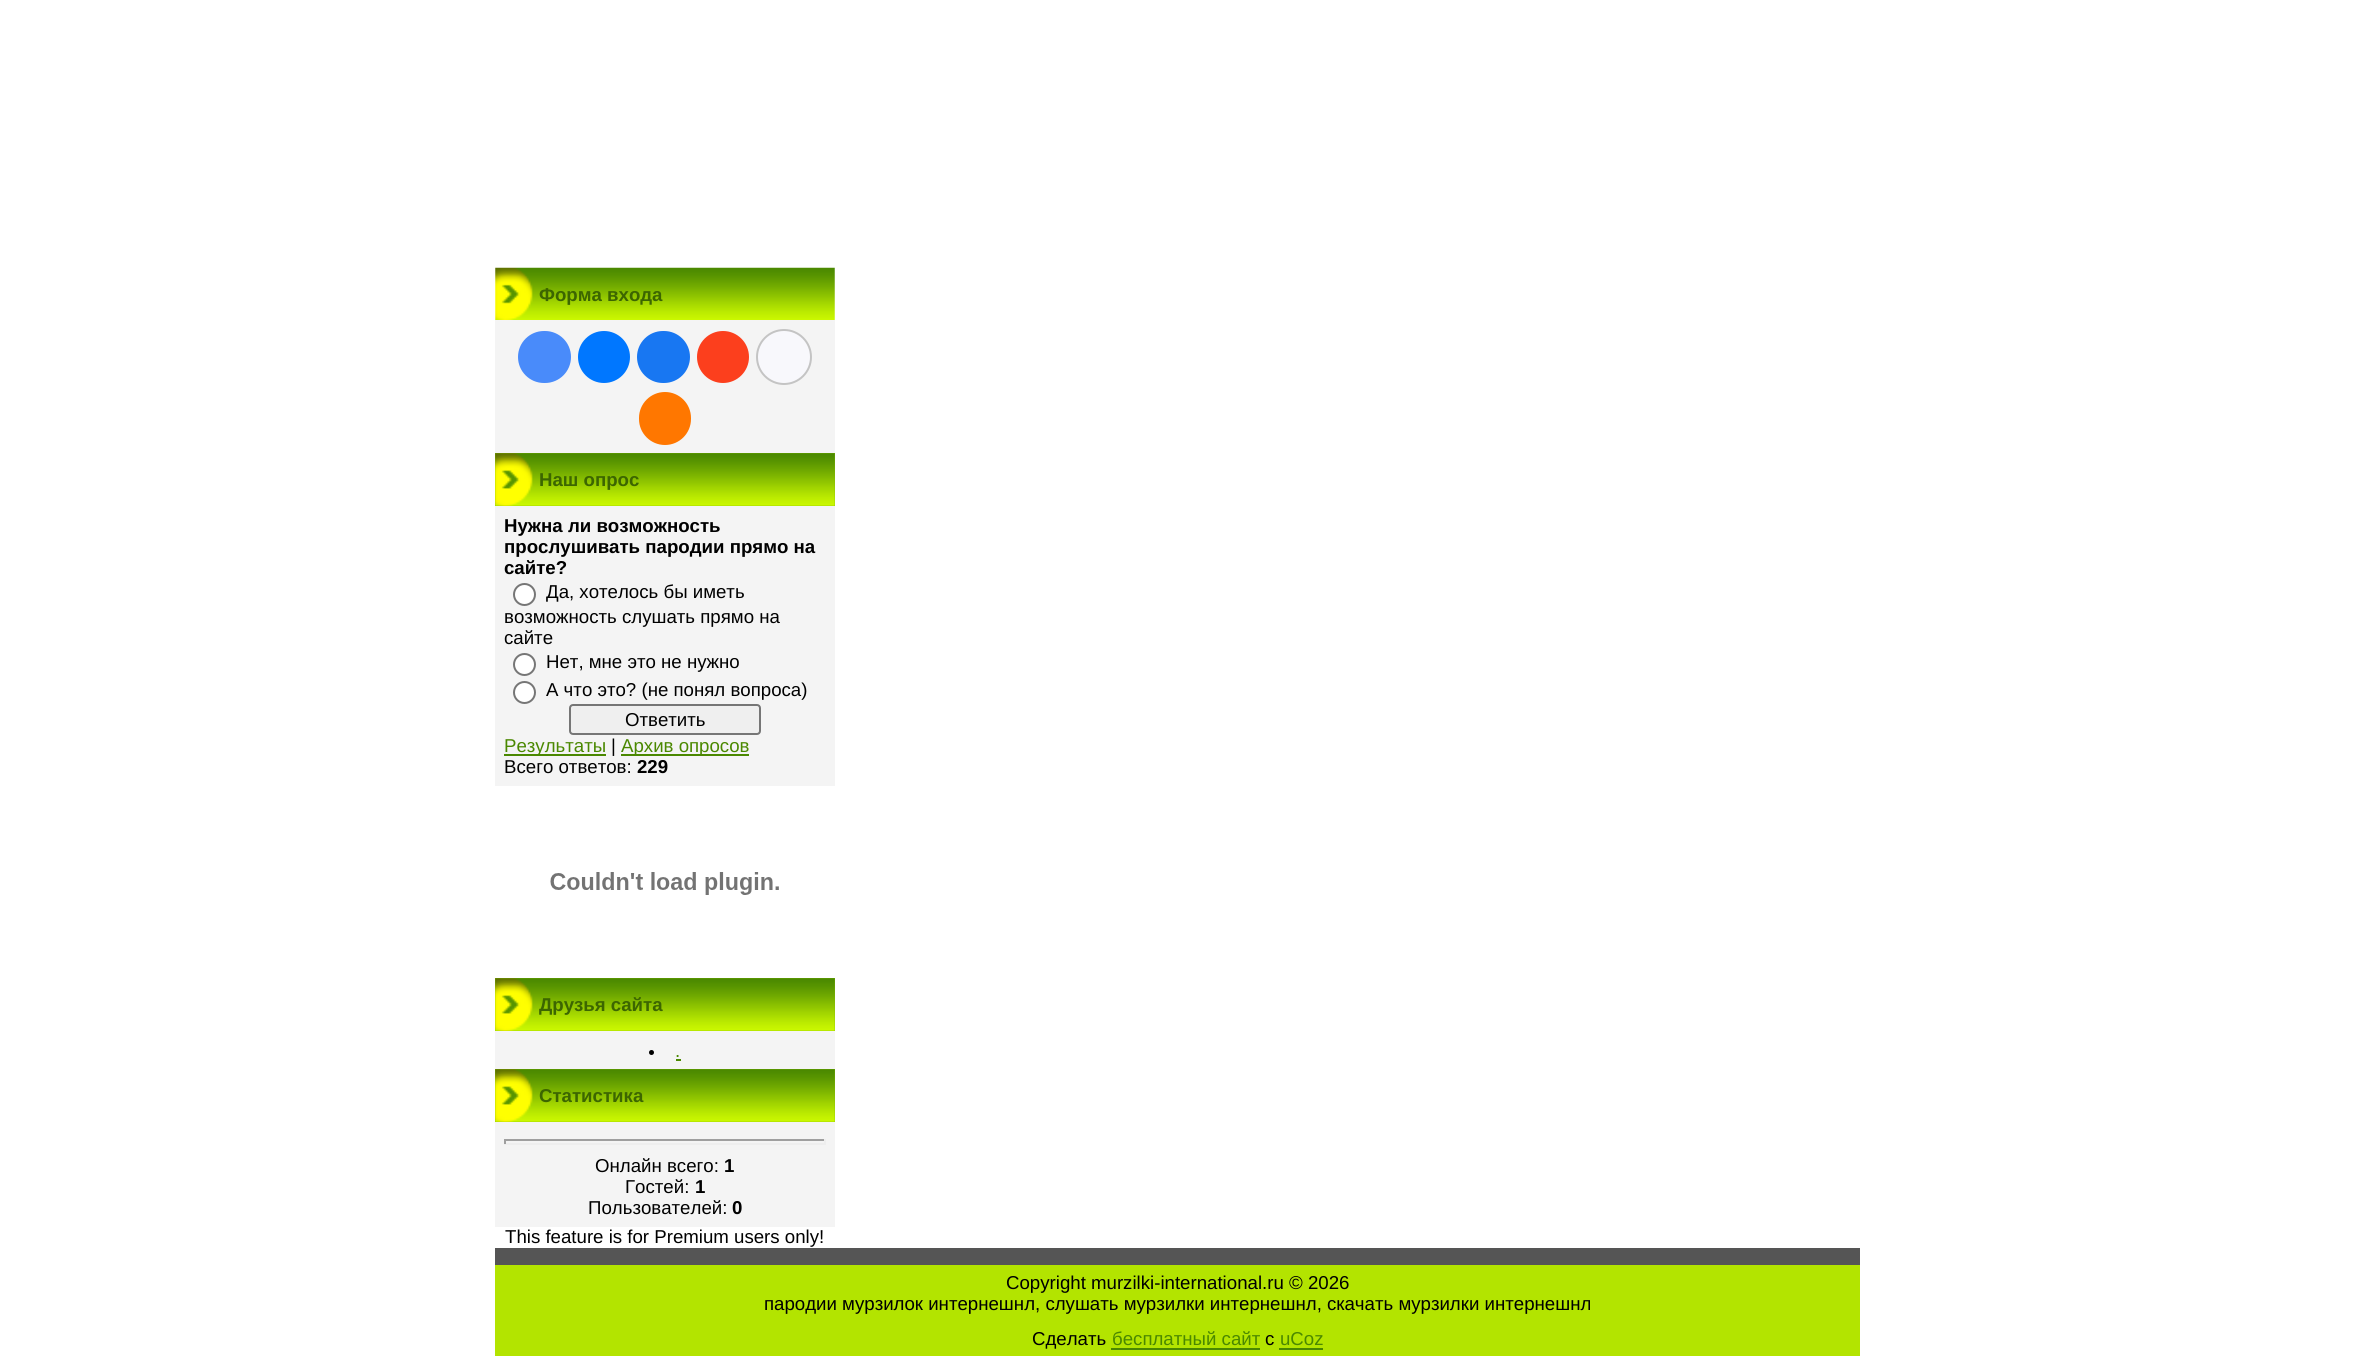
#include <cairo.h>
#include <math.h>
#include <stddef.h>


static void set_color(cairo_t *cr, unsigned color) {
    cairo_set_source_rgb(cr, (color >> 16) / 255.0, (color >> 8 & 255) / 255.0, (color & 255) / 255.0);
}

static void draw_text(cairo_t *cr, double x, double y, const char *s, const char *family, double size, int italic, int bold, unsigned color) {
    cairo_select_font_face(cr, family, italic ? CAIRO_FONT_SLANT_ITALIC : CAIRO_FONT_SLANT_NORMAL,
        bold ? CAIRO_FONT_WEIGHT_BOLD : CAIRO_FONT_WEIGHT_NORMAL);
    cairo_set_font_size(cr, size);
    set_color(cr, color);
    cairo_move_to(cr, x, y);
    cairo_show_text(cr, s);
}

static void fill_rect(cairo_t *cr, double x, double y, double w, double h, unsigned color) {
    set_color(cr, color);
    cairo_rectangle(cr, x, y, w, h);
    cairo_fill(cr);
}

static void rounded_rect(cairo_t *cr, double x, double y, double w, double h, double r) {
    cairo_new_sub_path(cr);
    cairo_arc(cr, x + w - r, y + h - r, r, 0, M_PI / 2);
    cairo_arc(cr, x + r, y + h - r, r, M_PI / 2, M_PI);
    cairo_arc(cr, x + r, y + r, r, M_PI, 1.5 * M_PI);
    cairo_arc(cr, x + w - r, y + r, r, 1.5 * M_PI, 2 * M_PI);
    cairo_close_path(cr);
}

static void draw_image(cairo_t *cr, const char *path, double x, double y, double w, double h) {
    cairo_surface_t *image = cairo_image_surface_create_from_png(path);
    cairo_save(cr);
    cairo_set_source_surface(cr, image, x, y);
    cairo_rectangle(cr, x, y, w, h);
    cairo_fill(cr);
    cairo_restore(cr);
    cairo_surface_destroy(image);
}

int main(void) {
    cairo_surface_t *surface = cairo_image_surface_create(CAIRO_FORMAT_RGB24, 2355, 1356);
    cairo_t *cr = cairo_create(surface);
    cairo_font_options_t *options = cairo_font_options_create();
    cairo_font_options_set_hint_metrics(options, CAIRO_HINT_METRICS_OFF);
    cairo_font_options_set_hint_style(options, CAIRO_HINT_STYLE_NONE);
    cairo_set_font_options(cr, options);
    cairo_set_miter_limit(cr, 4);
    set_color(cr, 0xFFFFFF);
    cairo_paint(cr);
    draw_image(cr, "assets/img1.png", 495, 267, 340, 53);
    draw_text(cr, 539, 301, "Форма входа", "Liberation Sans", 18.65, 0, 1, 0x3C6600);
    fill_rect(cr, 495, 320, 340, 133, 0xF4F4F4);
    set_color(cr, 0x498BFA);
    rounded_rect(cr, 518, 331, 53, 52, 26);
    cairo_fill(cr);
    set_color(cr, 0x0077FF);
    cairo_arc(cr, 604, 357, 26, 0, 2 * M_PI);
    cairo_fill(cr);
    set_color(cr, 0x1877F2);
    rounded_rect(cr, 637, 331, 53, 52, 26);
    cairo_fill(cr);
    set_color(cr, 0xFC3F1D);
    cairo_arc(cr, 723, 357, 26, 0, 2 * M_PI);
    cairo_fill(cr);
    set_color(cr, 0xF8F8FC);
    cairo_arc(cr, 784, 357, 27, 0, 2 * M_PI);
    cairo_fill_preserve(cr);
    set_color(cr, 0xC4C4C4);
    cairo_stroke(cr);
    set_color(cr, 0xFF7700);
    rounded_rect(cr, 639, 392, 52, 53, 26);
    cairo_fill(cr);
    fill_rect(cr, 495, 453, 340, 53, 0x82B900);
    draw_image(cr, "assets/img2.png", 495, 453, 340, 53);
    draw_text(cr, 539, 486, "Наш опрос", "Liberation Sans", 18.65, 0, 1, 0x3C6600);
    fill_rect(cr, 495, 506, 340, 280, 0xF4F4F4);
    draw_text(cr, 504, 532, "Нужна ли возможность", "Liberation Sans", 18.65, 0, 1, 0x000000);
    draw_text(cr, 504, 553, "прослушивать пародии прямо на", "Liberation Sans", 18.65, 0, 1, 0x000000);
    draw_text(cr, 504, 574, "сайте?", "Liberation Sans", 18.65, 0, 1, 0x000000);
    set_color(cr, 0xFFFFFF);
    cairo_new_path(cr);
    cairo_arc(cr, 524.5, 594.5, 10.5, 0, 2 * M_PI);
    cairo_fill_preserve(cr);
    set_color(cr, 0x767676);
    cairo_stroke(cr);
    draw_text(cr, 546, 598, "Да, хотелось бы иметь", "Liberation Sans", 18.65, 0, 0, 0x000000);
    draw_text(cr, 504, 623, "возможность слушать прямо на", "Liberation Sans", 18.65, 0, 0, 0x000000);
    draw_text(cr, 504, 644, "сайте", "Liberation Sans", 18.65, 0, 0, 0x000000);
    set_color(cr, 0xFFFFFF);
    cairo_new_path(cr);
    cairo_arc(cr, 524.5, 664.5, 10.5, 0, 2 * M_PI);
    cairo_fill_preserve(cr);
    set_color(cr, 0x767676);
    cairo_stroke(cr);
    draw_text(cr, 546, 668, "Нет, мне это не нужно", "Liberation Sans", 18.65, 0, 0, 0x000000);
    set_color(cr, 0xFFFFFF);
    cairo_new_path(cr);
    cairo_arc(cr, 524.5, 692.5, 10.5, 0, 2 * M_PI);
    cairo_fill_preserve(cr);
    set_color(cr, 0x767676);
    cairo_stroke(cr);
    draw_text(cr, 546, 696, "А что это? (не понял вопроса)", "Liberation Sans", 18.65, 0, 0, 0x000000);
    set_color(cr, 0xEFEFEF);
    rounded_rect(cr, 570, 705, 190, 29, 3);
    cairo_fill_preserve(cr);
    set_color(cr, 0x767676);
    cairo_stroke(cr);
    draw_text(cr, 625, 726, "Ответить", "Liberation Sans", 18.65, 0, 0, 0x000000);
    fill_rect(cr, 504, 754, 102, 2, 0x4A8800);
    draw_text(cr, 504, 752, "Результаты", "Liberation Sans", 18.65, 0, 0, 0x4A8800);
    draw_text(cr, 611, 752, "|", "Liberation Sans", 18.65, 0, 0, 0x000000);
    fill_rect(cr, 621, 754, 128, 2, 0x4A8800);
    draw_text(cr, 621, 752, "Архив опросов", "Liberation Sans", 18.65, 0, 0, 0x4A8800);
    draw_text(cr, 504, 773, "Всего ответов:", "Liberation Sans", 18.65, 0, 0, 0x000000);
    draw_text(cr, 637, 773, "229", "Liberation Sans", 18.65, 0, 1, 0x000000);
    draw_image(cr, "assets/img3.png", 550, 872, 229, 23);
    fill_rect(cr, 495, 978, 340, 53, 0x82B900);
    draw_image(cr, "assets/img2.png", 495, 978, 340, 53);
    draw_text(cr, 539, 1011, "Друзья сайта", "Liberation Sans", 18.65, 0, 1, 0x3C6600);
    fill_rect(cr, 495, 1031, 340, 38, 0xF4F4F4);
    set_color(cr, 0x000000);
    cairo_new_path(cr);
    cairo_arc(cr, 651.5, 1052.5, 2.5, 0, 2 * M_PI);
    cairo_fill(cr);
    draw_text(cr, 675, 1057, ".", "Liberation Sans", 18.65, 0, 0, 0x4A8800);
    fill_rect(cr, 676, 1059, 5, 2, 0x4A8800);
    fill_rect(cr, 495, 1069, 340, 53, 0x82B900);
    draw_image(cr, "assets/img2.png", 495, 1069, 340, 53);
    draw_text(cr, 539, 1102, "Статистика", "Liberation Sans", 18.65, 0, 1, 0x3C6600);
    fill_rect(cr, 495, 1122, 340, 105, 0xF4F4F4);
    fill_rect(cr, 504, 1139, 322, 2, 0x9F9F9F);
    fill_rect(cr, 824, 1139, 2, 5, 0xEEEEEE);
    fill_rect(cr, 504, 1143, 322, 2, 0xEEEEEE);
    fill_rect(cr, 504, 1139, 2, 5, 0x9F9F9F);
    draw_text(cr, 595, 1172, "Онлайн всего:", "Liberation Sans", 18.65, 0, 0, 0x000000);
    draw_text(cr, 724, 1172, "1", "Liberation Sans", 18.65, 0, 1, 0x000000);
    draw_text(cr, 625, 1193, "Гостей:", "Liberation Sans", 18.65, 0, 0, 0x000000);
    draw_text(cr, 695, 1193, "1", "Liberation Sans", 18.65, 0, 1, 0x000000);
    draw_text(cr, 588, 1214, "Пользователей:", "Liberation Sans", 18.65, 0, 0, 0x000000);
    draw_text(cr, 732, 1214, "0", "Liberation Sans", 18.65, 0, 1, 0x000000);
    draw_text(cr, 505, 1243, "This feature is for Premium users only!", "Liberation Sans", 18.65, 0, 0, 0x000000);
    fill_rect(cr, 495, 1248, 1365, 17, 0x555555);
    fill_rect(cr, 495, 1265, 1365, 91, 0xB3E400);
    draw_text(cr, 1006, 1289, "Copyright murzilki-international.ru © 2026", "Liberation Sans", 18.65, 0, 0, 0x000000);
    draw_text(cr, 764, 1310, "пародии мурзилок интернешнл, слушать мурзилки интернешнл, скачать мурзилки интернешнл", "Liberation Sans", 18.65, 0, 0, 0x000000);
    draw_text(cr, 1032, 1345, "Сделать", "Liberation Sans", 18.65, 0, 0, 0x000000);
    draw_text(cr, 1112, 1345, "бесплатный сайт", "Liberation Sans", 18.65, 0, 0, 0x4A8800);
    fill_rect(cr, 1111, 1348, 149, 2, 0x4A8800);
    draw_text(cr, 1265, 1345, "с", "Liberation Sans", 18.65, 0, 0, 0x000000);
    draw_text(cr, 1280, 1345, "uCoz", "Liberation Sans", 18.65, 0, 0, 0x4A8800);
    fill_rect(cr, 1279, 1348, 44, 2, 0x4A8800);
    cairo_surface_write_to_png(surface, "output.png");
    cairo_font_options_destroy(options);
    cairo_destroy(cr);
    cairo_surface_destroy(surface);
    return 0;
}
